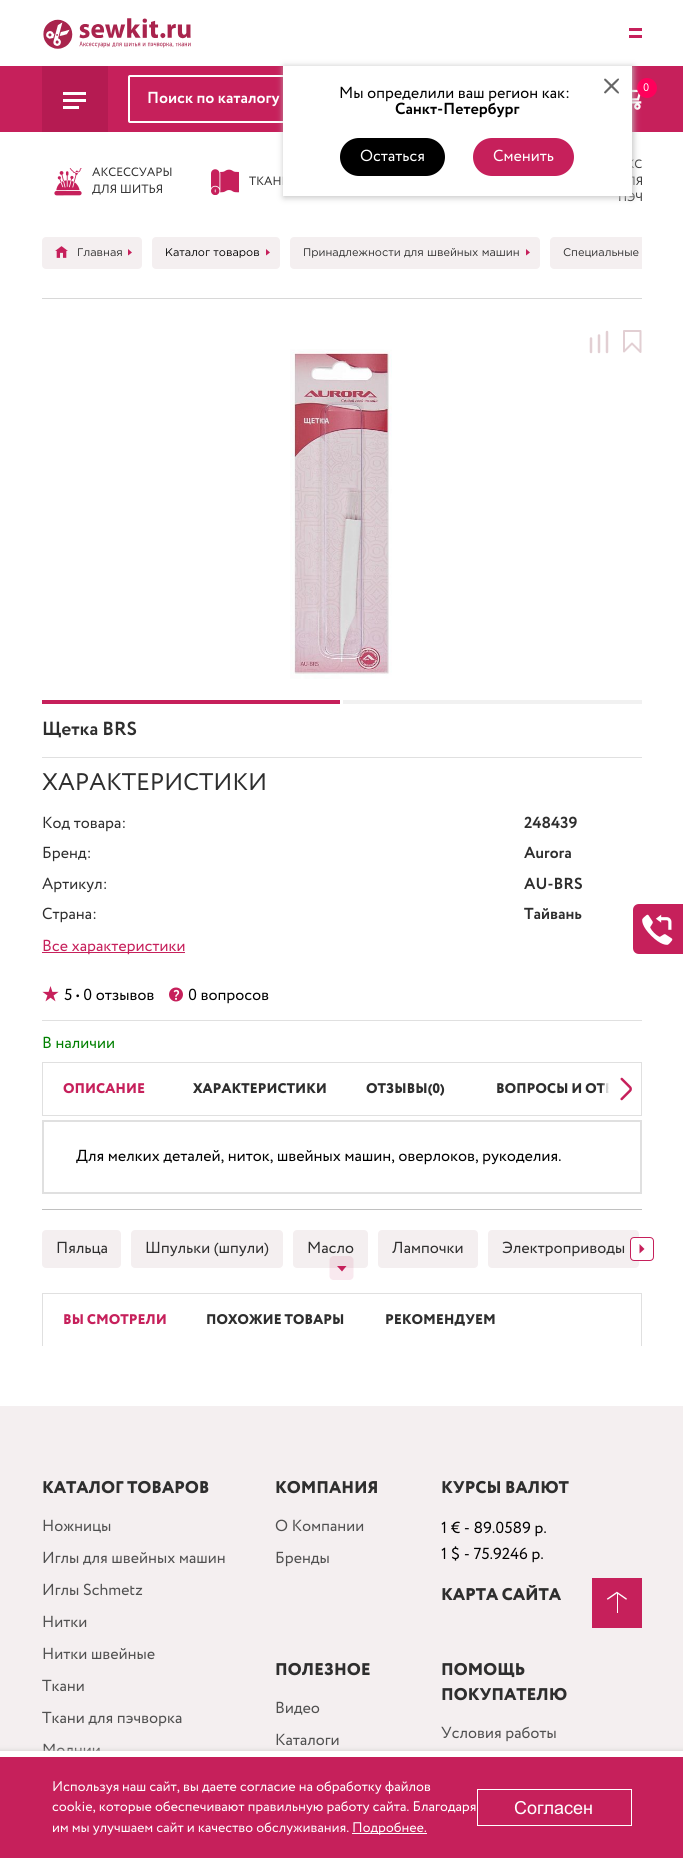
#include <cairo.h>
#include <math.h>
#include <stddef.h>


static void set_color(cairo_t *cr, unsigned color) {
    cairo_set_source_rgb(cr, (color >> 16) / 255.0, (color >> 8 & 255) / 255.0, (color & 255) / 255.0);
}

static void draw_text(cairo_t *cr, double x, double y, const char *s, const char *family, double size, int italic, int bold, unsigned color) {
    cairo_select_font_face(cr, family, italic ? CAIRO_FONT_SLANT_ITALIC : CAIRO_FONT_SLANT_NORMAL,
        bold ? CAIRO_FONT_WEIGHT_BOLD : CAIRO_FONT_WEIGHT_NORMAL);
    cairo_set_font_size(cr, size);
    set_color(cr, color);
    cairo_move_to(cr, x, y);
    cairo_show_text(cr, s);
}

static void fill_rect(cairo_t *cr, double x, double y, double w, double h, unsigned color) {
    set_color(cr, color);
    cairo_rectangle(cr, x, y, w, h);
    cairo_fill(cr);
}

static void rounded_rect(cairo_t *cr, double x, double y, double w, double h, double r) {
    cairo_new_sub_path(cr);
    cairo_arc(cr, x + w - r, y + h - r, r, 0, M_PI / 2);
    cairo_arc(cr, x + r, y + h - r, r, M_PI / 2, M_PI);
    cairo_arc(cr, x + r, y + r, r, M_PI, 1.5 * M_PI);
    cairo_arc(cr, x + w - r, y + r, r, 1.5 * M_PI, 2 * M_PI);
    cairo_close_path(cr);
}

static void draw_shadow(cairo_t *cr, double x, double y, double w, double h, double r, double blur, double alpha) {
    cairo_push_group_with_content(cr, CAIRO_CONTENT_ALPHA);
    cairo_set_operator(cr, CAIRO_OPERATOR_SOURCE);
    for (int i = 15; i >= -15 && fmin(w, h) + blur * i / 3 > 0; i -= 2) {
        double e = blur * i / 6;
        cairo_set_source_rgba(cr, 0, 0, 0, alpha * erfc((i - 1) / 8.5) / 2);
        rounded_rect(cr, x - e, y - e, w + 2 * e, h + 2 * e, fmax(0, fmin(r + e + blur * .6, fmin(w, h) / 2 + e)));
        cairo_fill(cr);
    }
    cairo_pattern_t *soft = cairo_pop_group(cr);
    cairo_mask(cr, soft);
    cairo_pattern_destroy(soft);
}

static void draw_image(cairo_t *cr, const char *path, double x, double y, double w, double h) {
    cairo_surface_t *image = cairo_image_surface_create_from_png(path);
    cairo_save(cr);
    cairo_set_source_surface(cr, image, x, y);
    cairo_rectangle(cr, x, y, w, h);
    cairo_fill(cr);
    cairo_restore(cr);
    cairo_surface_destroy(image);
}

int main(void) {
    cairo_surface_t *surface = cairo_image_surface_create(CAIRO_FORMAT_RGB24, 683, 1858);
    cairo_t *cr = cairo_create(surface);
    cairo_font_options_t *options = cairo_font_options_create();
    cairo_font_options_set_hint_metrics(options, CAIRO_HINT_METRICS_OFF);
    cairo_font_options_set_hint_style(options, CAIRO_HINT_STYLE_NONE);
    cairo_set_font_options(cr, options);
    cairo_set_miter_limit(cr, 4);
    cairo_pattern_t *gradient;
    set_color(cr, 0xFFFFFF);
    cairo_paint(cr);
    draw_image(cr, "assets/img1.png", 43, 18, 148, 31);
    fill_rect(cr, 629, 28, 13, 3, 0xC6205B);
    fill_rect(cr, 629, 35, 13, 3, 0xC6205B);
    fill_rect(cr, 0, 66, 683, 66, 0xC6205B);
    rounded_rect(cr, 129, 76, 378, 46, 1);
    set_color(cr, 0xFFFFFF);
    cairo_stroke(cr);
    draw_image(cr, "assets/img6.png", 148, 91, 132, 16);
    draw_image(cr, "assets/img8.png", 632, 89, 10, 21);
    set_color(cr, 0xFF005B);
    cairo_arc(cr, 647, 88, 10, 0, 2 * M_PI);
    cairo_fill(cr);
    draw_image(cr, "assets/img7.png", 643, 83, 6, 9);
    draw_image(cr, "assets/img13.png", 249, 176, 34, 9);
    draw_image(cr, "assets/img14.png", 632, 159, 10, 10);
    draw_image(cr, "assets/img15.png", 632, 176, 10, 9);
    draw_image(cr, "assets/img16.png", 619, 192, 23, 10);
    set_color(cr, 0xBCBCBC);
    draw_shadow(cr, 284, 67, 349, 130, 0, 3.5, 1);
    fill_rect(cr, 283, 66, 349, 130, 0xFFFFFF);
    draw_image(cr, "assets/img2.png", 340, 86, 229, 16);
    draw_image(cr, "assets/img3.png", 395, 102, 125, 16);
    set_color(cr, 0x666666);
    cairo_new_path(cr);
    cairo_move_to(cr, 606, 79);
    cairo_curve_to(cr, 607.5, 80.5, 619, 91.5, 619, 92.5);
    cairo_curve_to(cr, 619, 95, 616.5, 92.5, 615, 91);
    cairo_line_to(cr, 604, 80);
    cairo_curve_to(cr, 604, 79.5, 604.5, 78.5, 605, 78.5);
    cairo_close_path(cr);
    cairo_fill(cr);
    cairo_new_path(cr);
    cairo_move_to(cr, 604.5, 91.5);
    cairo_curve_to(cr, 606, 90, 617, 78.5, 618, 78.5);
    cairo_curve_to(cr, 620.5, 78.5, 618, 81, 616.5, 82.5);
    cairo_line_to(cr, 605.5, 93.5);
    cairo_curve_to(cr, 605, 93.5, 604, 93, 604, 92.5);
    cairo_close_path(cr);
    cairo_fill(cr);
    set_color(cr, 0x000000);
    rounded_rect(cr, 340, 138, 105, 38, 19);
    cairo_fill(cr);
    draw_image(cr, "assets/img4.png", 360, 149, 64, 13);
    set_color(cr, 0xC6205B);
    rounded_rect(cr, 473, 138, 101, 38, 19);
    cairo_fill(cr);
    draw_image(cr, "assets/img5.png", 493, 149, 61, 13);
    fill_rect(cr, 42, 66, 66, 66, 0xB51B52);
    fill_rect(cr, 63, 92, 23, 3, 0xFFFFFF);
    fill_rect(cr, 63, 99, 23, 3, 0xFFFFFF);
    fill_rect(cr, 63, 106, 16, 3, 0xFFFFFF);
    draw_image(cr, "assets/img9.png", 54, 168, 28, 28);
    draw_image(cr, "assets/img10.png", 92, 167, 80, 10);
    draw_image(cr, "assets/img11.png", 92, 184, 70, 11);
    draw_image(cr, "assets/img12.png", 211, 169, 28, 26);
    set_color(cr, 0xF4EFF0);
    rounded_rect(cr, 42, 237, 100, 32, 4);
    cairo_fill(cr);
    draw_image(cr, "assets/img17.png", 55, 246, 13, 12);
    draw_text(cr, 77, 256, "Главная", "Gotham", 11, 0, 0, 0x2E2E2E);
    set_color(cr, 0xC6205B);
    cairo_set_fill_rule(cr, CAIRO_FILL_RULE_EVEN_ODD);
    cairo_new_path(cr);
    cairo_move_to(cr, 128, 255.5);
    cairo_line_to(cr, 132, 252.5);
    cairo_line_to(cr, 128, 249);
    cairo_close_path(cr);
    cairo_fill(cr);
    set_color(cr, 0xF4EFF0);
    rounded_rect(cr, 152, 237, 128, 32, 4);
    cairo_fill(cr);
    draw_text(cr, 165, 256, "Каталог товаров", "Gotham", 11, 0, 0, 0x000000);
    set_color(cr, 0xC6205B);
    cairo_new_path(cr);
    cairo_move_to(cr, 266, 255.5);
    cairo_line_to(cr, 270, 252.5);
    cairo_line_to(cr, 266, 249);
    cairo_close_path(cr);
    cairo_fill(cr);
    set_color(cr, 0xF4EFF0);
    rounded_rect(cr, 290, 237, 250, 32, 4);
    cairo_fill(cr);
    draw_text(cr, 303, 256, "Принадлежности для швейных машин", "Gotham", 11, 0, 0, 0x2E2E2E);
    set_color(cr, 0xC6205B);
    cairo_new_path(cr);
    cairo_move_to(cr, 526, 255.5);
    cairo_line_to(cr, 530, 252.5);
    cairo_line_to(cr, 526, 249);
    cairo_close_path(cr);
    cairo_fill(cr);
    set_color(cr, 0xF4EFF0);
    cairo_new_path(cr);
    cairo_move_to(cr, 554, 237);
    cairo_line_to(cr, 642, 237);
    cairo_line_to(cr, 642, 269);
    cairo_line_to(cr, 554, 269);
    cairo_curve_to(cr, 552, 269, 550, 267, 550, 265);
    cairo_line_to(cr, 550, 241);
    cairo_curve_to(cr, 550, 239, 552, 237, 554, 237);
    cairo_close_path(cr);
    cairo_fill(cr);
    draw_text(cr, 563, 256, "Специальные", "Gotham", 11, 0, 0, 0x2E2E2E);
    fill_rect(cr, 42, 298, 600, 1, 0xD8D8D8);
    draw_image(cr, "assets/img18.png", 290, 349, 102, 330);
    fill_rect(cr, 42, 700, 298, 4, 0xC6205B);
    fill_rect(cr, 343, 700, 299, 4, 0xF1F1F1);
    cairo_new_path(cr);
    cairo_move_to(cr, 591, 352);
    cairo_line_to(cr, 591, 338.5);
    cairo_move_to(cr, 599, 352);
    cairo_line_to(cr, 599, 335.5);
    cairo_move_to(cr, 607, 352);
    cairo_line_to(cr, 607, 332);
    set_color(cr, 0xE2CFD3);
    cairo_set_line_width(cr, 2.5);
    cairo_set_line_cap(cr, CAIRO_LINE_CAP_ROUND);
    cairo_set_line_join(cr, CAIRO_LINE_JOIN_ROUND);
    cairo_stroke(cr);
    cairo_new_path(cr);
    cairo_move_to(cr, 624, 331);
    cairo_line_to(cr, 640.5, 331);
    cairo_line_to(cr, 640.5, 352);
    cairo_line_to(cr, 632, 343.5);
    cairo_line_to(cr, 624, 351.5);
    cairo_close_path(cr);
    cairo_set_line_width(cr, 2);
    cairo_set_line_cap(cr, CAIRO_LINE_CAP_BUTT);
    cairo_stroke(cr);
    draw_image(cr, "assets/img19.png", 43, 1036, 71, 13);
    fill_rect(cr, 0, 1406, 683, 345, 0xF4EFF0);
    draw_image(cr, "assets/img58.png", 43, 1743, 57, 8);
    draw_image(cr, "assets/img69.png", 276, 1733, 63, 13);
    set_color(cr, 0xCCCCCC);
    draw_shadow(cr, -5, 1751, 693, 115, 0, 2.5, 1);
    fill_rect(cr, 0, 1751, 683, 6, 0xFFFFFF);
    draw_image(cr, "assets/img20.png", 43, 721, 94, 17);
    fill_rect(cr, 42, 757, 600, 1, 0xE0E0E0);
    fill_rect(cr, 42, 1020, 600, 1, 0xE0E0E0);
    draw_image(cr, "assets/img21.png", 42, 773, 223, 18);
    draw_image(cr, "assets/img22.png", 43, 816, 82, 16);
    draw_image(cr, "assets/img23.png", 524, 816, 53, 13);
    draw_image(cr, "assets/img24.png", 43, 846, 47, 16);
    draw_image(cr, "assets/img25.png", 524, 846, 47, 13);
    draw_image(cr, "assets/img26.png", 42, 877, 64, 16);
    draw_image(cr, "assets/img27.png", 524, 877, 58, 13);
    draw_image(cr, "assets/img28.png", 42, 907, 54, 16);
    draw_image(cr, "assets/img29.png", 524, 907, 58, 13);
    fill_rect(cr, 42, 952, 143, 1, 0xC6205B);
    draw_image(cr, "assets/img30.png", 43, 939, 142, 16);
    draw_image(cr, "assets/img31.png", 42, 986, 17, 16);
    draw_image(cr, "assets/img32.png", 64, 988, 90, 13);
    draw_image(cr, "assets/img33.png", 169, 987, 14, 15);
    draw_image(cr, "assets/img34.png", 188, 988, 81, 16);
    cairo_rectangle(cr, 42.5, 1062.5, 599, 53);
    set_color(cr, 0xE0E0E0);
    cairo_set_line_width(cr, 1);
    cairo_set_line_join(cr, CAIRO_LINE_JOIN_MITER);
    cairo_stroke(cr);
    draw_image(cr, "assets/img35.png", 63, 1083, 82, 11);
    draw_image(cr, "assets/img36.png", 193, 1083, 133, 11);
    draw_image(cr, "assets/img37.png", 366, 1083, 79, 13);
    draw_image(cr, "assets/img38.png", 497, 1083, 112, 11);
    gradient = cairo_pattern_create_linear(641, 1089, 601, 1089);
    cairo_pattern_add_color_stop_rgba(gradient, 0.8, 1, 1, 1, 1);
    cairo_pattern_add_color_stop_rgba(gradient, 1, 1, 1, 1, 0);
    cairo_set_source(cr, gradient);
    cairo_pattern_destroy(gradient);
    cairo_rectangle(cr, 601, 1083, 8, 11);
    cairo_fill(cr);
    draw_image(cr, "assets/img39.png", 620, 1077, 12, 24);
    cairo_rectangle(cr, 42.5, 1120.5, 599, 73);
    set_color(cr, 0xE0E0E0);
    cairo_stroke(cr);
    cairo_rectangle(cr, 43.5, 1121.5, 597, 71);
    cairo_stroke(cr);
    draw_image(cr, "assets/img40.png", 76, 1149, 485, 16);
    fill_rect(cr, 42, 1209, 600, 1, 0xC0C0C0);
    set_color(cr, 0xF4EFF0);
    rounded_rect(cr, 42, 1230, 79, 38, 4);
    cairo_fill(cr);
    draw_image(cr, "assets/img41.png", 57, 1241, 50, 14);
    rounded_rect(cr, 131, 1230, 152, 38, 4);
    cairo_fill(cr);
    draw_image(cr, "assets/img42.png", 146, 1241, 123, 16);
    rounded_rect(cr, 293, 1230, 75, 38, 4);
    cairo_fill(cr);
    draw_image(cr, "assets/img43.png", 308, 1241, 46, 13);
    rounded_rect(cr, 378, 1230, 100, 38, 4);
    cairo_fill(cr);
    draw_image(cr, "assets/img44.png", 392, 1241, 71, 13);
    rounded_rect(cr, 488, 1230, 151, 38, 4);
    cairo_fill(cr);
    draw_image(cr, "assets/img45.png", 502, 1241, 123, 16);
    set_color(cr, 0xFFFFFF);
    rounded_rect(cr, 630.5, 1237.5, 23, 23, 3.5);
    cairo_fill_preserve(cr);
    set_color(cr, 0xC6205B);
    cairo_stroke(cr);
    cairo_new_path(cr);
    cairo_move_to(cr, 639.5, 1253.5);
    cairo_line_to(cr, 644.5, 1249);
    cairo_line_to(cr, 639.5, 1244);
    cairo_close_path(cr);
    cairo_fill(cr);
    cairo_set_source_rgba(cr, 0.776, 0.125, 0.357, 0.1);
    cairo_set_fill_rule(cr, CAIRO_FILL_RULE_WINDING);
    cairo_new_path(cr);
    cairo_move_to(cr, 353.5, 1260);
    cairo_line_to(cr, 353.5, 1276);
    cairo_curve_to(cr, 353.5, 1278.5, 351.5, 1280, 349.5, 1280);
    cairo_line_to(cr, 333.5, 1280);
    cairo_curve_to(cr, 331.5, 1280, 329.5, 1278.5, 329.5, 1276);
    cairo_line_to(cr, 329.5, 1260);
    cairo_curve_to(cr, 329.5, 1258, 331.5, 1256, 333.5, 1256);
    cairo_line_to(cr, 349.5, 1256);
    cairo_curve_to(cr, 351.5, 1256, 353.5, 1258, 353.5, 1260);
    cairo_close_path(cr);
    cairo_fill(cr);
    set_color(cr, 0xC6205B);
    cairo_set_fill_rule(cr, CAIRO_FILL_RULE_EVEN_ODD);
    cairo_new_path(cr);
    cairo_move_to(cr, 337, 1266);
    cairo_line_to(cr, 342, 1271.5);
    cairo_line_to(cr, 346.5, 1266);
    cairo_close_path(cr);
    cairo_fill(cr);
    fill_rect(cr, 42, 1293, 600, 1, 0xE0E0E0);
    fill_rect(cr, 641, 1293, 1, 53, 0xE0E0E0);
    fill_rect(cr, 42, 1293, 1, 53, 0xE0E0E0);
    draw_image(cr, "assets/img46.png", 64, 1314, 102, 11);
    draw_image(cr, "assets/img47.png", 207, 1314, 137, 11);
    draw_image(cr, "assets/img48.png", 386, 1314, 109, 12);
    set_color(cr, 0xC6205B);
    cairo_new_path(cr);
    cairo_move_to(cr, 639, 904);
    cairo_line_to(cr, 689, 904);
    cairo_line_to(cr, 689, 954);
    cairo_line_to(cr, 639, 954);
    cairo_curve_to(cr, 635.5, 954, 633, 951.5, 633, 948);
    cairo_line_to(cr, 633, 910);
    cairo_curve_to(cr, 633, 906.5, 635.5, 904, 639, 904);
    cairo_close_path(cr);
    cairo_fill(cr);
    draw_image(cr, "assets/img49.png", 642, 914, 31, 31);
    draw_image(cr, "assets/img50.png", 43, 1480, 166, 14);
    draw_image(cr, "assets/img51.png", 43, 1519, 68, 14);
    draw_image(cr, "assets/img52.png", 43, 1551, 182, 14);
    draw_image(cr, "assets/img53.png", 43, 1583, 100, 13);
    draw_image(cr, "assets/img54.png", 43, 1615, 44, 12);
    draw_image(cr, "assets/img55.png", 43, 1647, 112, 13);
    draw_image(cr, "assets/img56.png", 42, 1679, 42, 13);
    draw_image(cr, "assets/img57.png", 42, 1711, 140, 16);
    draw_image(cr, "assets/img59.png", 276, 1480, 101, 14);
    draw_image(cr, "assets/img60.png", 275, 1519, 89, 13);
    draw_image(cr, "assets/img61.png", 276, 1551, 53, 16);
    draw_image(cr, "assets/img62.png", 442, 1480, 127, 14);
    draw_image(cr, "assets/img63.png", 441, 1521, 105, 16);
    draw_image(cr, "assets/img64.png", 441, 1546, 102, 17);
    draw_image(cr, "assets/img65.png", 442, 1585, 119, 16);
    fill_rect(cr, 592, 1578, 50, 50, 0xC6205B);
    draw_image(cr, "assets/img66.png", 606, 1591, 21, 22);
    draw_image(cr, "assets/img67.png", 276, 1662, 94, 14);
    draw_image(cr, "assets/img68.png", 276, 1701, 44, 14);
    draw_image(cr, "assets/img70.png", 442, 1662, 83, 16);
    draw_image(cr, "assets/img71.png", 442, 1687, 125, 14);
    draw_image(cr, "assets/img72.png", 441, 1726, 115, 16);
    fill_rect(cr, 0, 1757, 683, 101, 0xC6205B);
    draw_image(cr, "assets/img73.png", 53, 1781, 66, 13);
    draw_image(cr, "assets/img74.png", 123, 1781, 308, 13);
    draw_image(cr, "assets/img75.png", 52, 1801, 424, 13);
    draw_image(cr, "assets/img76.png", 53, 1822, 296, 13);
    fill_rect(cr, 352, 1833, 75, 1, 0xFFFFFF);
    draw_image(cr, "assets/img77.png", 353, 1822, 73, 13);
    cairo_rectangle(cr, 477.5, 1789.5, 154, 36);
    cairo_stroke(cr);
    draw_text(cr, 514, 1814, "Согласен", "Arial", 18, 0, 0, 0xFFFFFF);
    cairo_surface_write_to_png(surface, "output.png");
    cairo_font_options_destroy(options);
    cairo_destroy(cr);
    cairo_surface_destroy(surface);
    return 0;
}
